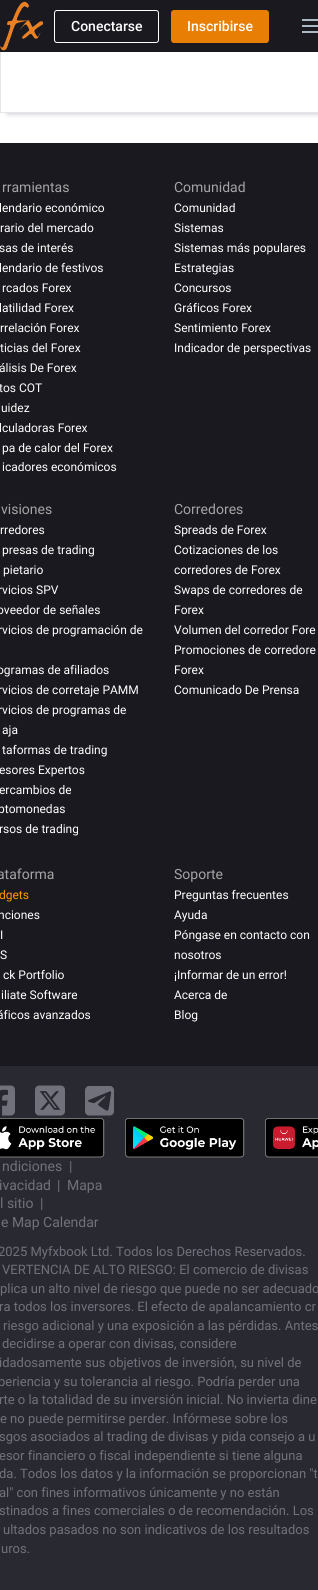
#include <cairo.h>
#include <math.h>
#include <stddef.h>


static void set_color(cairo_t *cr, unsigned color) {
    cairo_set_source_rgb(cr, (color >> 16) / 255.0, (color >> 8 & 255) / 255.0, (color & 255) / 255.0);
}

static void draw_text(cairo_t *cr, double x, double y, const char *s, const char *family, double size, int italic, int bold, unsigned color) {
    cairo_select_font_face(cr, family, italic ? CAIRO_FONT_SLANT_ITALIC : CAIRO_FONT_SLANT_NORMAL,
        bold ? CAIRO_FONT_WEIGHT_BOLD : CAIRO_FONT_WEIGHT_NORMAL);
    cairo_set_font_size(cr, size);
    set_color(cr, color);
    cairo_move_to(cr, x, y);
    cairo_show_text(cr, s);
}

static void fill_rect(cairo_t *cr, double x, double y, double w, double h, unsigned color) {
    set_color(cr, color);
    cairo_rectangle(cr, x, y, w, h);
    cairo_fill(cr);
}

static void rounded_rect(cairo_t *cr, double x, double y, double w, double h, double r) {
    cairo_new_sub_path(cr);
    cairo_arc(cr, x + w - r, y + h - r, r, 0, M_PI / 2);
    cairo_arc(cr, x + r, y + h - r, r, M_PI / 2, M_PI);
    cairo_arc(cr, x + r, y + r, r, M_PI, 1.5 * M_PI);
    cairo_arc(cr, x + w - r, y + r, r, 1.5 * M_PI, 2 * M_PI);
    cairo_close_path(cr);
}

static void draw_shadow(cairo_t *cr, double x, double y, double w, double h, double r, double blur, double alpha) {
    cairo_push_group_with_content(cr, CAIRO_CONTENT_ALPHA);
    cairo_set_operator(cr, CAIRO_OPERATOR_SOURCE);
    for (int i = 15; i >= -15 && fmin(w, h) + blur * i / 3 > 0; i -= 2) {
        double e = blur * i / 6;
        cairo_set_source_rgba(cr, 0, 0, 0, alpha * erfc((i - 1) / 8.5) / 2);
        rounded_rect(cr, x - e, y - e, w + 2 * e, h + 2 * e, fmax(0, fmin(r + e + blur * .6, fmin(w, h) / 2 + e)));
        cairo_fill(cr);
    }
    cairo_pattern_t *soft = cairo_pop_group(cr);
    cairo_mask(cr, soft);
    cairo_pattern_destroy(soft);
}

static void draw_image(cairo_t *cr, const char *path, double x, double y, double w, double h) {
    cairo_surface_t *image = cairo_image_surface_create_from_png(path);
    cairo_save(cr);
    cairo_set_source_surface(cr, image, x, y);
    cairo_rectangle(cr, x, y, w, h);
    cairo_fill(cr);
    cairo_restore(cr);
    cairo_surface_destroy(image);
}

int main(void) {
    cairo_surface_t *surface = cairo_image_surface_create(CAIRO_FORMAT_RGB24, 318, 1590);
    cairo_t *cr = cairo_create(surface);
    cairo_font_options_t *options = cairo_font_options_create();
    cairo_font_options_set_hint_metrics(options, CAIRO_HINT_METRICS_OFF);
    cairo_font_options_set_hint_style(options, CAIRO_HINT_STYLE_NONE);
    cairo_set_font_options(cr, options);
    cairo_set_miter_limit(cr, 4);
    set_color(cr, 0xFFFFFF);
    cairo_paint(cr);
    cairo_save(cr);
    cairo_rectangle(cr, 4, 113, 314, 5);
    cairo_clip(cr);
    set_color(cr, 0x523F69);
    draw_shadow(cr, 8, -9, 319, 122, 0, 3, 0.4);
    cairo_restore(cr);
    cairo_rectangle(cr, 0.5, -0.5, 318, 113);
    set_color(cr, 0xE6E6E6);
    cairo_set_line_width(cr, 1);
    cairo_stroke(cr);
    fill_rect(cr, 0, 0, 318, 52, 0x19191F);
    draw_image(cr, "assets/img1.png", 0, 1, 43, 50);
    rounded_rect(cr, 54.5, 10.5, 104, 32, 2.5);
    set_color(cr, 0xFFFFFF);
    cairo_stroke(cr);
    draw_text(cr, 71, 31, "Conectarse", "Roboto Medium", 14, 0, 0, 0xFFFFFF);
    set_color(cr, 0xE87E04);
    rounded_rect(cr, 171, 10, 98, 33, 3);
    cairo_fill(cr);
    draw_text(cr, 187, 31, "Inscribirse", "Roboto Medium", 14, 0, 0, 0xFFFFFF);
    draw_image(cr, "assets/img2.png", 302, 19, 16, 14);
    fill_rect(cr, 0, 143, 318, 923, 0x19191F);
    draw_text(cr, 2, 192, "rramientas", "Roboto", 14, 0, 0, 0xA5A5A5);
    draw_text(cr, -1, 212, "lendario económico", "Roboto", 12, 0, 0, 0xFFFFFF);
    draw_text(cr, 0, 232, "rario del mercado", "Roboto", 12, 0, 0, 0xFFFFFF);
    draw_text(cr, -1, 252, "sas de interés", "Roboto", 12, 0, 0, 0xFFFFFF);
    draw_text(cr, -1, 272, "lendario de festivos", "Roboto", 12, 0, 0, 0xFFFFFF);
    draw_text(cr, 2, 292, "rcados Forex", "Roboto", 12, 0, 0, 0xFFFFFF);
    draw_text(cr, -1, 312, "latilidad Forex", "Roboto", 12, 0, 0, 0xFFFFFF);
    draw_text(cr, 0, 332, "rrelación Forex", "Roboto", 12, 0, 0, 0xFFFFFF);
    draw_text(cr, 0, 352, "ticias del Forex", "Roboto", 12, 0, 0, 0xFFFFFF);
    draw_text(cr, -1, 372, "álisis De Forex", "Roboto", 12, 0, 0, 0xFFFFFF);
    draw_text(cr, -1, 392, "tos COT", "Roboto", 12, 0, 0, 0xFFFFFF);
    draw_text(cr, 1, 412, "uidez", "Roboto", 12, 0, 0, 0xFFFFFF);
    draw_text(cr, -1, 432, "lculadoras Forex", "Roboto", 12, 0, 0, 0xFFFFFF);
    draw_text(cr, 2, 452, "pa de calor del Forex", "Roboto", 12, 0, 0, 0xFFFFFF);
    draw_text(cr, 2, 471, "icadores económicos", "Roboto", 12, 0, 0, 0xFFFFFF);
    draw_text(cr, 174, 192, "Comunidad", "Roboto", 14, 0, 0, 0xA5A5A5);
    draw_text(cr, 174, 212, "Comunidad", "Roboto", 12, 0, 0, 0xFFFFFF);
    draw_text(cr, 174, 232, "Sistemas", "Roboto", 12, 0, 0, 0xFFFFFF);
    draw_text(cr, 174, 252, "Sistemas más populares", "Roboto", 12, 0, 0, 0xFFFFFF);
    draw_text(cr, 174, 272, "Estrategias", "Roboto", 12, 0, 0, 0xFFFFFF);
    draw_text(cr, 174, 292, "Concursos", "Roboto", 12, 0, 0, 0xFFFFFF);
    draw_text(cr, 174, 312, "Gráficos Forex", "Roboto", 12, 0, 0, 0xFFFFFF);
    draw_text(cr, 174, 332, "Sentimiento Forex", "Roboto", 12, 0, 0, 0xFFFFFF);
    draw_text(cr, 174, 352, "Indicador de perspectivas", "Roboto", 12, 0, 0, 0xFFFFFF);
    draw_text(cr, 1, 514, "visiones", "Roboto", 14, 0, 0, 0xA5A5A5);
    draw_text(cr, 0, 534, "rredores", "Roboto", 12, 0, 0, 0xFFFFFF);
    draw_text(cr, 2, 554, "presas de trading", "Roboto", 12, 0, 0, 0xFFFFFF);
    draw_text(cr, 3, 574, "pietario", "Roboto", 12, 0, 0, 0xFFFFFF);
    draw_text(cr, -2, 594, "rvicios SPV", "Roboto", 12, 0, 0, 0xFFFFFF);
    draw_text(cr, -3, 614, "oveedor de señales", "Roboto", 12, 0, 0, 0xFFFFFF);
    draw_text(cr, -2, 634, "rvicios de programación de", "Roboto", 12, 0, 0, 0xFFFFFF);
    draw_text(cr, -3, 674, "ogramas de afiliados", "Roboto", 12, 0, 0, 0xFFFFFF);
    draw_text(cr, -2, 694, "rvicios de corretaje PAMM", "Roboto", 12, 0, 0, 0xFFFFFF);
    draw_text(cr, -2, 714, "rvicios de programas de", "Roboto", 12, 0, 0, 0xFFFFFF);
    draw_text(cr, 2, 734, "aja", "Roboto", 12, 0, 0, 0xFFFFFF);
    draw_text(cr, 2, 754, "taformas de trading", "Roboto", 12, 0, 0, 0xFFFFFF);
    draw_text(cr, -1, 774, "esores Expertos", "Roboto", 12, 0, 0, 0xFFFFFF);
    draw_text(cr, -1, 794, "ercambios de", "Roboto", 12, 0, 0, 0xFFFFFF);
    draw_text(cr, -2, 813, "ptomonedas", "Roboto", 12, 0, 0, 0xFFFFFF);
    draw_text(cr, -1, 833, "rsos de trading", "Roboto", 12, 0, 0, 0xFFFFFF);
    draw_text(cr, 174, 514, "Corredores", "Roboto", 14, 0, 0, 0xA5A5A5);
    draw_text(cr, 174, 534, "Spreads de Forex", "Roboto", 12, 0, 0, 0xFFFFFF);
    draw_text(cr, 174, 554, "Cotizaciones de los", "Roboto", 12, 0, 0, 0xFFFFFF);
    draw_text(cr, 174, 574, "corredores de Forex", "Roboto", 12, 0, 0, 0xFFFFFF);
    draw_text(cr, 174, 594, "Swaps de corredores de", "Roboto", 12, 0, 0, 0xFFFFFF);
    draw_text(cr, 174, 614, "Forex", "Roboto", 12, 0, 0, 0xFFFFFF);
    draw_text(cr, 174, 634, "Volumen del corredor Fore", "Roboto", 12, 0, 0, 0xFFFFFF);
    draw_text(cr, 174, 654, "Promociones de corredore", "Roboto", 12, 0, 0, 0xFFFFFF);
    draw_text(cr, 174, 674, "Forex", "Roboto", 12, 0, 0, 0xFFFFFF);
    draw_text(cr, 174, 694, "Comunicado De Prensa", "Roboto", 12, 0, 0, 0xFFFFFF);
    draw_text(cr, -3, 879, "ataforma", "Roboto", 14, 0, 0, 0xA5A5A5);
    draw_text(cr, -1, 899, "dgets", "Roboto", 12, 0, 0, 0xFF9900);
    draw_text(cr, -2, 919, "nciones", "Roboto", 12, 0, 0, 0xFFFFFF);
    draw_text(cr, 0, 939, "I", "Roboto", 12, 0, 0, 0xFFFFFF);
    draw_text(cr, 0, 959, "S", "Roboto", 12, 0, 0, 0xFFFFFF);
    draw_text(cr, 3, 979, "ck Portfolio", "Roboto", 12, 0, 0, 0xFFFFFF);
    draw_text(cr, 1, 999, "iliate Software", "Roboto", 12, 0, 0, 0xFFFFFF);
    draw_text(cr, -3, 1019, "áficos avanzados", "Roboto", 12, 0, 0, 0xFFFFFF);
    draw_text(cr, 174, 879, "Soporte", "Roboto", 14, 0, 0, 0xA5A5A5);
    draw_text(cr, 174, 899, "Preguntas frecuentes", "Roboto", 12, 0, 0, 0xFFFFFF);
    draw_text(cr, 174, 919, "Ayuda", "Roboto", 12, 0, 0, 0xFFFFFF);
    draw_text(cr, 174, 939, "Póngase en contacto con", "Roboto", 12, 0, 0, 0xFFFFFF);
    draw_text(cr, 174, 959, "nosotros", "Roboto", 12, 0, 0, 0xFFFFFF);
    draw_text(cr, 174, 979, "¡Informar de un error!", "Roboto", 12, 0, 0, 0xFFFFFF);
    draw_text(cr, 174, 999, "Acerca de", "Roboto", 12, 0, 0, 0xFFFFFF);
    draw_text(cr, 174, 1019, "Blog", "Roboto", 12, 0, 0, 0xFFFFFF);
    fill_rect(cr, 0, 1066, 318, 524, 0x292932);
    draw_image(cr, "assets/img3.png", 0, 1085, 15, 31);
    draw_image(cr, "assets/img4.png", 35, 1085, 30, 31);
    draw_image(cr, "assets/img5.png", 85, 1086, 29, 30);
    draw_image(cr, "assets/img6.png", 0, 1118, 105, 40);
    draw_image(cr, "assets/img7.png", 125, 1118, 120, 40);
    draw_image(cr, "assets/img8.png", 265, 1118, 53, 40);
    draw_text(cr, 2, 1171, "ndiciones", "Roboto", 14, 0, 0, 0x71717B);
    draw_text(cr, 69, 1171, "|", "Roboto", 14, 0, 0, 0x71717B);
    draw_text(cr, -1, 1190, "ivacidad", "Roboto", 14, 0, 0, 0x71717B);
    draw_text(cr, 57, 1190, "|", "Roboto", 14, 0, 0, 0x71717B);
    draw_text(cr, 67, 1190, "Mapa", "Roboto", 14, 0, 0, 0x71717B);
    draw_text(cr, 0, 1208, "l sitio", "Roboto", 14, 0, 0, 0x71717B);
    draw_text(cr, 40, 1208, "|", "Roboto", 14, 0, 0, 0x71717B);
    draw_text(cr, 1, 1227, "e Map Calendar", "Roboto", 14, 0, 0, 0x71717B);
    draw_text(cr, -2, 1256, "2025 Myfxbook Ltd. Todos los Derechos Reservados.", "Roboto", 13, 0, 0, 0x71717B);
    draw_text(cr, 2, 1274, "VERTENCIA DE ALTO RIESGO: El comercio de divisas", "Roboto", 13, 0, 0, 0x71717B);
    draw_text(cr, 0, 1293, "plica un alto nivel de riesgo que puede no ser adecuado", "Roboto", 13, 0, 0, 0x71717B);
    draw_text(cr, -1, 1311, "ra todos los inversores. El efecto de apalancamiento cr", "Roboto", 13, 0, 0, 0x71717B);
    draw_text(cr, 3, 1330, "riesgo adicional y una exposición a las pérdidas. Antes", "Roboto", 13, 0, 0, 0x71717B);
    draw_text(cr, 2, 1348, "decidirse a operar con divisas, considere", "Roboto", 13, 0, 0, 0x71717B);
    draw_text(cr, -1, 1367, "idadosamente sus objetivos de inversión, su nivel de", "Roboto", 13, 0, 0, 0x71717B);
    draw_text(cr, -2, 1386, "periencia y su tolerancia al riesgo. Podría perder una", "Roboto", 13, 0, 0, 0x71717B);
    draw_text(cr, -1, 1404, "rte o la totalidad de su inversión inicial. No invierta dine", "Roboto", 13, 0, 0, 0x71717B);
    draw_text(cr, 0, 1423, "e no puede permitirse perder. Infórmese sobre los", "Roboto", 13, 0, 0, 0x71717B);
    draw_text(cr, -1, 1441, "sgos asociados al trading de divisas y pida consejo a u", "Roboto", 13, 0, 0, 0x71717B);
    draw_text(cr, -1, 1460, "esor financiero o fiscal independiente si tiene alguna", "Roboto", 13, 0, 0, 0x71717B);
    draw_text(cr, -1, 1478, "da. Todos los datos y la información se proporcionan \"t", "Roboto", 13, 0, 0, 0x71717B);
    draw_text(cr, -1, 1497, "al\" con fines informativos únicamente y no están", "Roboto", 13, 0, 0, 0x71717B);
    draw_text(cr, -1, 1515, "stinados a fines comerciales o de recomendación. Los", "Roboto", 13, 0, 0, 0x71717B);
    draw_text(cr, 3, 1534, "ultados pasados no son indicativos de los resultados", "Roboto", 13, 0, 0, 0x71717B);
    draw_text(cr, 1, 1553, "uros.", "Roboto", 13, 0, 0, 0x71717B);
    cairo_surface_write_to_png(surface, "output.png");
    cairo_font_options_destroy(options);
    cairo_destroy(cr);
    cairo_surface_destroy(surface);
    return 0;
}
